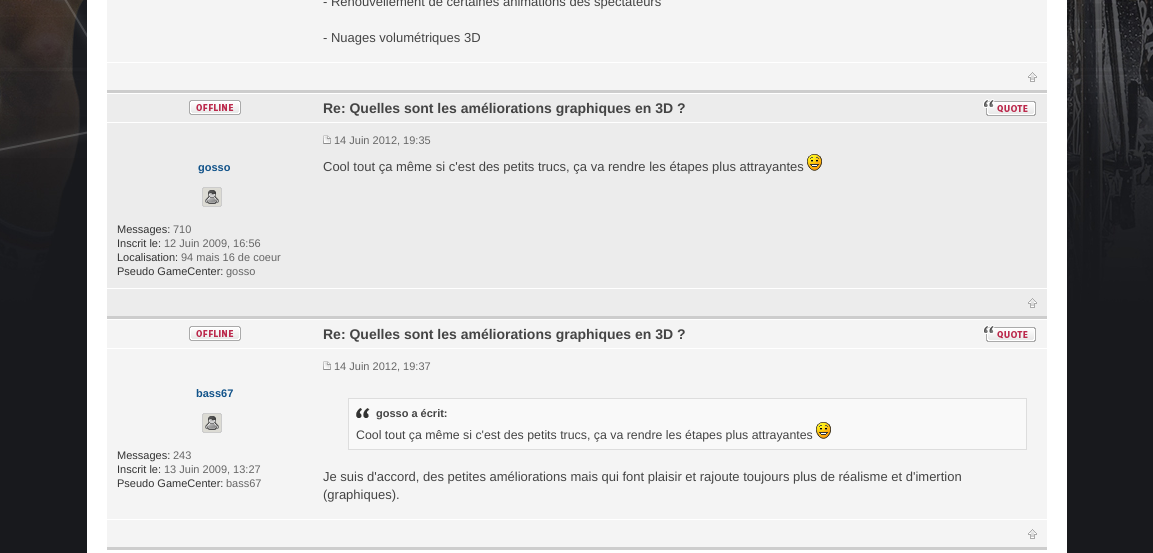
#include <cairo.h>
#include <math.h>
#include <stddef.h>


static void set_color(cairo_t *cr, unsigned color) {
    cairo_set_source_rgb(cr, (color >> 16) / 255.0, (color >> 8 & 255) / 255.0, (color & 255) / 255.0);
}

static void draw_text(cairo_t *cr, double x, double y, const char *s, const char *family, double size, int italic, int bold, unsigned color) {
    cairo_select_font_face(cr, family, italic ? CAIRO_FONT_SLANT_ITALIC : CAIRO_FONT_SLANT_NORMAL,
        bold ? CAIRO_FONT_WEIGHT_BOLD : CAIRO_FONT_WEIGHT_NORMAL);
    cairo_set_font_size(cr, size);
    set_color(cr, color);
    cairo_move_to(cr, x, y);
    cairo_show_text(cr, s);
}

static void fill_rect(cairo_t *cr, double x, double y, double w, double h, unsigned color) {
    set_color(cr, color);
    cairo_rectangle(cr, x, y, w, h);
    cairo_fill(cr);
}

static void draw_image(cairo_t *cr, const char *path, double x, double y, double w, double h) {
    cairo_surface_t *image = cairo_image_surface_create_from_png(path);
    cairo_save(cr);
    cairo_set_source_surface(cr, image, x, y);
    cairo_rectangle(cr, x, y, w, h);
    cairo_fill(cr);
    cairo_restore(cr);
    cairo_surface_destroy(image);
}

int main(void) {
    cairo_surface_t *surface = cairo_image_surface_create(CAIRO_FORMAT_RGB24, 1153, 553);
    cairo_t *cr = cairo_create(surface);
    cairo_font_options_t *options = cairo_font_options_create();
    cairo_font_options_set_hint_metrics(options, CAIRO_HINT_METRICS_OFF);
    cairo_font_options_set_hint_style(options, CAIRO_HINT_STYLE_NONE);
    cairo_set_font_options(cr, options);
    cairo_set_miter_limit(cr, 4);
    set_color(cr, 0xFFFFFF);
    cairo_paint(cr);
    draw_image(cr, "assets/img1.png", 0, 0, 1153, 553);
    fill_rect(cr, 87, 0, 980, 553, 0xFFFFFF);
    fill_rect(cr, 107, 0, 940, 90, 0xF4F4F4);
    fill_rect(cr, 107, 90, 940, 3, 0xCDCDCD);
    draw_text(cr, 323, 6, "- Renouvellement de certaines animations des spectateurs", "Liberation Sans", 13, 0, 0, 0x444444);
    draw_text(cr, 323, 42, "- Nuages volumétriques 3D", "Liberation Sans", 13, 0, 0, 0x444444);
    fill_rect(cr, 107, 62, 940, 1, 0xFFFFFF);
    draw_image(cr, "assets/img2.png", 1028, 72, 9, 10);
    fill_rect(cr, 107, 94, 940, 222, 0xECECEC);
    fill_rect(cr, 107, 316, 940, 3, 0xCDCDCD);
    draw_text(cr, 323, 113, "Re: Quelles sont les améliorations graphiques en 3D ?", "Liberation Sans", 14, 0, 1, 0x444444);
    draw_image(cr, "assets/img3.png", 983, 99, 53, 17);
    draw_image(cr, "assets/img4.png", 983, 99, 53, 17);
    draw_image(cr, "assets/img5.png", 323, 135, 8, 9);
    draw_text(cr, 334, 144, "14 Juin 2012, 19:35", "Liberation Sans", 11, 0, 0, 0x666666);
    draw_text(cr, 323, 171, "Cool tout ça même si c'est des petits trucs, ça va rendre les étapes plus attrayantes", "Liberation Sans", 13, 0, 0, 0x444444);
    draw_image(cr, "assets/img6.png", 807, 154, 15, 17);
    fill_rect(cr, 107, 122, 940, 1, 0xFFFFFF);
    draw_image(cr, "assets/img7.png", 189, 100, 52, 15);
    draw_text(cr, 198, 171, "gosso", "Liberation Sans", 11, 0, 1, 0x105289);
    draw_image(cr, "assets/img8.png", 202, 187, 20, 20);
    draw_text(cr, 117, 233, "Messages:", "Liberation Sans", 11, 0, 0, 0x333333);
    draw_text(cr, 173, 233, "710", "Liberation Sans", 11, 0, 0, 0x666666);
    draw_text(cr, 117, 247, "Inscrit le:", "Liberation Sans", 11, 0, 0, 0x333333);
    draw_text(cr, 164, 247, "12 Juin 2009, 16:56", "Liberation Sans", 11, 0, 0, 0x666666);
    draw_text(cr, 117, 261, "Localisation:", "Liberation Sans", 11, 0, 0, 0x333333);
    draw_text(cr, 181, 261, "94 mais 16 de coeur", "Liberation Sans", 11, 0, 0, 0x666666);
    draw_text(cr, 117, 275, "Pseudo GameCenter:", "Liberation Sans", 11, 0, 0, 0x333333);
    draw_text(cr, 226, 275, "gosso", "Liberation Sans", 11, 0, 0, 0x666666);
    fill_rect(cr, 107, 288, 940, 1, 0xFFFFFF);
    draw_image(cr, "assets/img9.png", 1028, 298, 9, 10);
    fill_rect(cr, 107, 320, 940, 227, 0xF4F4F4);
    fill_rect(cr, 107, 547, 940, 3, 0xCDCDCD);
    fill_rect(cr, 107, 348, 940, 1, 0xFFFFFF);
    draw_image(cr, "assets/img10.png", 189, 326, 52, 15);
    draw_text(cr, 196, 397, "bass67", "Liberation Sans", 11, 0, 1, 0x105289);
    draw_image(cr, "assets/img11.png", 202, 413, 20, 20);
    draw_text(cr, 117, 459, "Messages:", "Liberation Sans", 11, 0, 0, 0x333333);
    draw_text(cr, 173, 459, "243", "Liberation Sans", 11, 0, 0, 0x666666);
    draw_text(cr, 117, 473, "Inscrit le:", "Liberation Sans", 11, 0, 0, 0x333333);
    draw_text(cr, 164, 473, "13 Juin 2009, 13:27", "Liberation Sans", 11, 0, 0, 0x666666);
    draw_text(cr, 117, 487, "Pseudo GameCenter:", "Liberation Sans", 11, 0, 0, 0x333333);
    draw_text(cr, 226, 487, "bass67", "Liberation Sans", 11, 0, 0, 0x666666);
    draw_text(cr, 323, 339, "Re: Quelles sont les améliorations graphiques en 3D ?", "Liberation Sans", 14, 0, 1, 0x444444);
    draw_image(cr, "assets/img12.png", 983, 325, 53, 17);
    draw_image(cr, "assets/img13.png", 984, 326, 52, 16);
    draw_image(cr, "assets/img14.png", 323, 361, 8, 9);
    draw_text(cr, 334, 370, "14 Juin 2012, 19:37", "Liberation Sans", 11, 0, 0, 0x666666);
    fill_rect(cr, 349, 399, 677, 50, 0xF9F9F9);
    draw_image(cr, "assets/img15.png", 356, 408, 14, 10);
    cairo_rectangle(cr, 348.5, 398.5, 678, 51);
    set_color(cr, 0xDDDDDD);
    cairo_set_line_width(cr, 1);
    cairo_stroke(cr);
    draw_text(cr, 376, 417, "gosso a écrit:", "Liberation Sans", 11, 0, 1, 0x444444);
    draw_text(cr, 356, 439, "Cool tout ça même si c'est des petits trucs, ça va rendre les étapes plus attrayantes", "Liberation Sans", 12.35, 0, 0, 0x444444);
    draw_image(cr, "assets/img16.png", 816, 422, 15, 17);
    draw_text(cr, 323, 481, "Je suis d'accord, des petites améliorations mais qui font plaisir et rajoute toujours plus de réalisme et d'imertion", "Liberation Sans", 13, 0, 0, 0x444444);
    draw_text(cr, 323, 499, "(graphiques).", "Liberation Sans", 13, 0, 0, 0x444444);
    fill_rect(cr, 107, 519, 940, 1, 0xFFFFFF);
    draw_image(cr, "assets/img2.png", 1028, 529, 9, 10);
    cairo_surface_write_to_png(surface, "output.png");
    cairo_font_options_destroy(options);
    cairo_destroy(cr);
    cairo_surface_destroy(surface);
    return 0;
}
